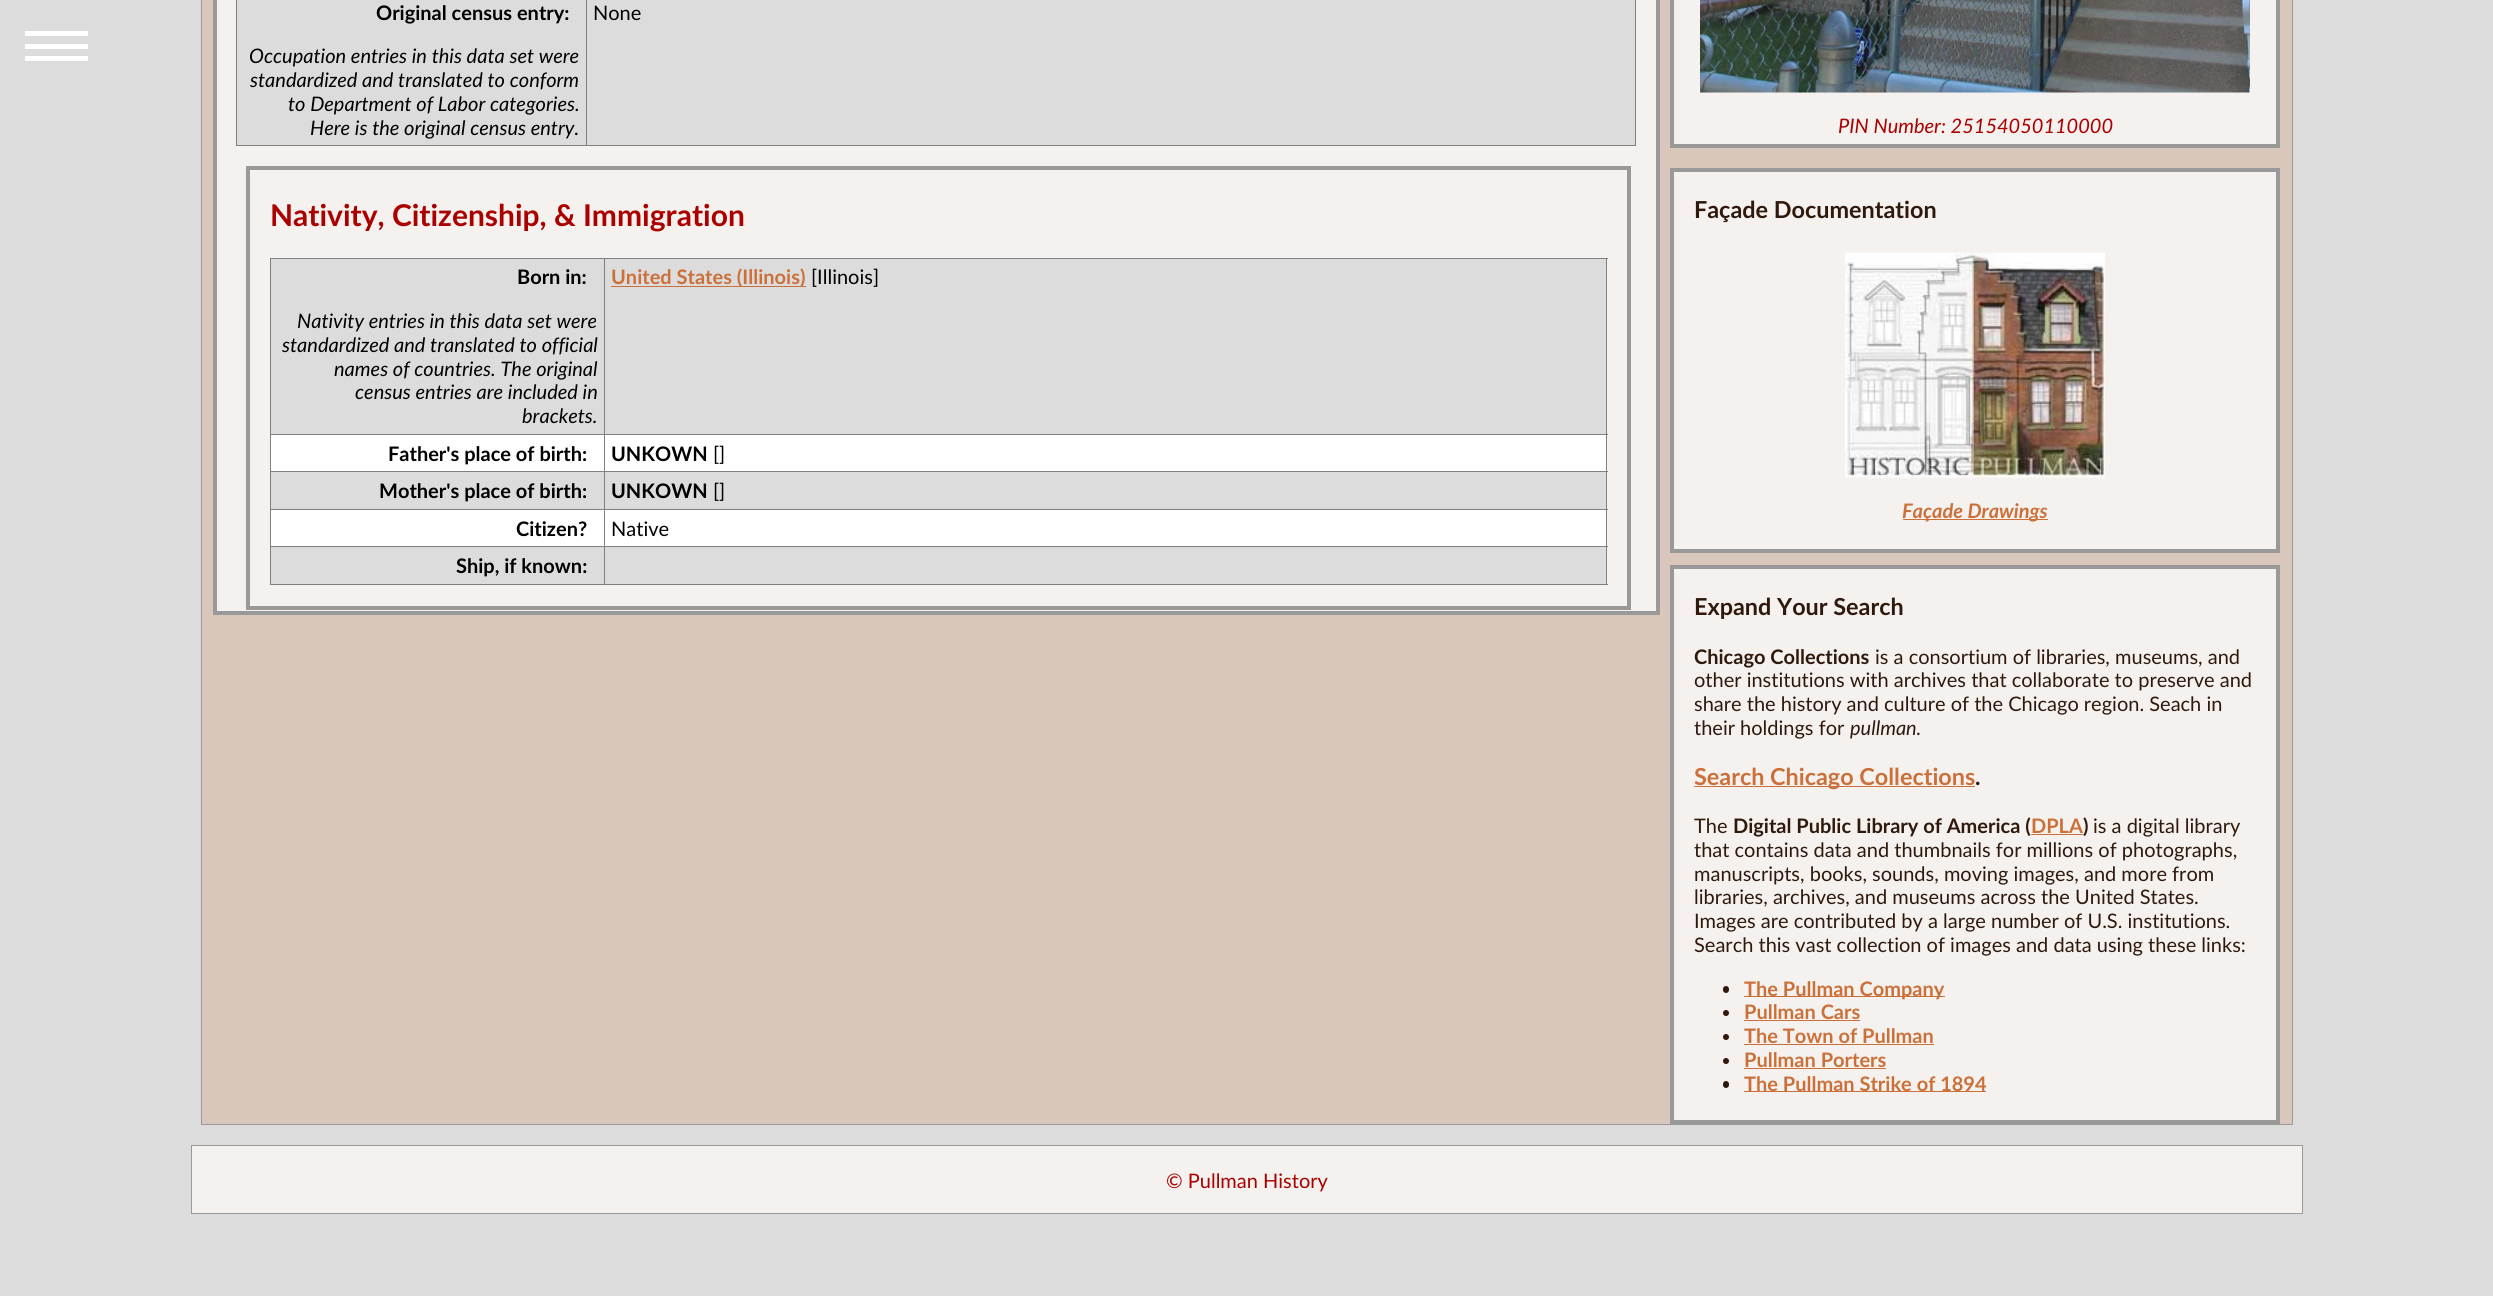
#include <cairo.h>
#include <math.h>
#include <stddef.h>


static void set_color(cairo_t *cr, unsigned color) {
    cairo_set_source_rgb(cr, (color >> 16) / 255.0, (color >> 8 & 255) / 255.0, (color & 255) / 255.0);
}

static void draw_text(cairo_t *cr, double x, double y, const char *s, const char *family, double size, int italic, int bold, unsigned color) {
    cairo_select_font_face(cr, family, italic ? CAIRO_FONT_SLANT_ITALIC : CAIRO_FONT_SLANT_NORMAL,
        bold ? CAIRO_FONT_WEIGHT_BOLD : CAIRO_FONT_WEIGHT_NORMAL);
    cairo_set_font_size(cr, size);
    set_color(cr, color);
    cairo_move_to(cr, x, y);
    cairo_show_text(cr, s);
}

static void fill_rect(cairo_t *cr, double x, double y, double w, double h, unsigned color) {
    set_color(cr, color);
    cairo_rectangle(cr, x, y, w, h);
    cairo_fill(cr);
}

static void rounded_rect(cairo_t *cr, double x, double y, double w, double h, double r) {
    cairo_new_sub_path(cr);
    cairo_arc(cr, x + w - r, y + h - r, r, 0, M_PI / 2);
    cairo_arc(cr, x + r, y + h - r, r, M_PI / 2, M_PI);
    cairo_arc(cr, x + r, y + r, r, M_PI, 1.5 * M_PI);
    cairo_arc(cr, x + w - r, y + r, r, 1.5 * M_PI, 2 * M_PI);
    cairo_close_path(cr);
}

static void draw_image(cairo_t *cr, const char *path, double x, double y, double w, double h) {
    cairo_surface_t *image = cairo_image_surface_create_from_png(path);
    cairo_save(cr);
    cairo_set_source_surface(cr, image, x, y);
    cairo_rectangle(cr, x, y, w, h);
    cairo_fill(cr);
    cairo_restore(cr);
    cairo_surface_destroy(image);
}

int main(void) {
    cairo_surface_t *surface = cairo_image_surface_create(CAIRO_FORMAT_RGB24, 2493, 1296);
    cairo_t *cr = cairo_create(surface);
    cairo_font_options_t *options = cairo_font_options_create();
    cairo_font_options_set_hint_metrics(options, CAIRO_HINT_METRICS_OFF);
    cairo_font_options_set_hint_style(options, CAIRO_HINT_STYLE_NONE);
    cairo_set_font_options(cr, options);
    cairo_set_miter_limit(cr, 4);
    set_color(cr, 0xDCDCDC);
    cairo_paint(cr);
    fill_rect(cr, 25, 44, 63, 5, 0xFFFFFF);
    fill_rect(cr, 25, 31, 63, 5, 0xFFFFFF);
    fill_rect(cr, 25, 56, 63, 5, 0xFFFFFF);
    set_color(cr, 0xD9C7BC);
    cairo_rectangle(cr, 201.5, -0.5, 2091, 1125);
    cairo_fill_preserve(cr);
    set_color(cr, 0x999999);
    cairo_set_line_width(cr, 1);
    cairo_stroke(cr);
    set_color(cr, 0xF5F1EE);
    cairo_rectangle(cr, 215, -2, 1443, 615);
    cairo_fill_preserve(cr);
    set_color(cr, 0x999999);
    cairo_set_line_width(cr, 4);
    cairo_stroke(cr);
    fill_rect(cr, 1635, 0, 1, 146, 0x808080);
    fill_rect(cr, 236, 145, 1400, 1, 0x808080);
    fill_rect(cr, 236, 0, 1, 146, 0x808080);
    fill_rect(cr, 237, 0, 349, 145, 0xDCDCDC);
    draw_text(cr, 376, 20, "Original census entry:", "Lato", 20, 0, 1, 0x000000);
    draw_text(cr, 249, 63, "Occupation entries in this data set were", "Lato", 20, 1, 0, 0x000000);
    draw_text(cr, 250, 87, "standardized and translated to conform", "Lato", 20, 1, 0, 0x000000);
    draw_text(cr, 288, 111, "to Department of Labor categories.", "Lato", 20, 1, 0, 0x000000);
    draw_text(cr, 310, 135, "Here is the original census entry.", "Lato", 20, 1, 0, 0x000000);
    fill_rect(cr, 587, 0, 1048, 145, 0xDCDCDC);
    fill_rect(cr, 586, 0, 1, 146, 0x808080);
    draw_text(cr, 593, 20, "None", "Lato", 20, 0, 0, 0x000000);
    cairo_rectangle(cr, 248, 168, 1381, 440);
    set_color(cr, 0x999999);
    cairo_stroke(cr);
    draw_text(cr, 270, 226, "Nativity, Citizenship, & Immigration", "Lato", 30, 0, 1, 0xAA0000);
    fill_rect(cr, 270, 258, 1338, 1, 0x808080);
    fill_rect(cr, 1606, 258, 1, 327, 0x808080);
    fill_rect(cr, 270, 584, 1338, 1, 0x808080);
    fill_rect(cr, 270, 258, 1, 327, 0x808080);
    fill_rect(cr, 271, 259, 333, 175, 0xDCDCDC);
    draw_text(cr, 517, 284, "Born in:", "Lato", 20, 0, 1, 0x000000);
    draw_text(cr, 297, 328, "Nativity entries in this data set were", "Lato", 20, 1, 0, 0x000000);
    draw_text(cr, 282, 352, "standardized and translated to official", "Lato", 20, 1, 0, 0x000000);
    draw_text(cr, 334, 376, "names of countries. The original", "Lato", 20, 1, 0, 0x000000);
    draw_text(cr, 355, 399, "census entries are included in", "Lato", 20, 1, 0, 0x000000);
    draw_text(cr, 522, 423, "brackets.", "Lato", 20, 1, 0, 0x000000);
    fill_rect(cr, 605, 259, 1001, 175, 0xDCDCDC);
    fill_rect(cr, 604, 434, 1004, 1, 0x808080);
    fill_rect(cr, 604, 471, 1004, 1, 0x808080);
    fill_rect(cr, 604, 509, 1004, 1, 0x808080);
    fill_rect(cr, 604, 546, 1004, 1, 0x808080);
    fill_rect(cr, 604, 546, 1, 39, 0x808080);
    fill_rect(cr, 270, 546, 335, 1, 0x808080);
    fill_rect(cr, 604, 509, 1, 39, 0x808080);
    fill_rect(cr, 270, 509, 335, 1, 0x808080);
    fill_rect(cr, 604, 471, 1, 39, 0x808080);
    fill_rect(cr, 270, 471, 335, 1, 0x808080);
    fill_rect(cr, 604, 434, 1, 39, 0x808080);
    fill_rect(cr, 270, 434, 335, 1, 0x808080);
    fill_rect(cr, 604, 258, 1, 177, 0x808080);
    fill_rect(cr, 611, 286, 195, 1, 0xCC703A);
    draw_text(cr, 611, 284, "United States (Illinois)", "Lato", 20, 0, 1, 0xCC703A);
    draw_text(cr, 811, 284, "[Illinois]", "Lato", 20, 0, 0, 0x000000);
    fill_rect(cr, 271, 435, 333, 36, 0xFFFFFF);
    draw_text(cr, 388, 461, "Father's place of birth:", "Lato", 20, 0, 1, 0x000000);
    fill_rect(cr, 605, 435, 1001, 36, 0xFFFFFF);
    draw_text(cr, 611, 461, "UNKOWN", "Lato", 20, 0, 1, 0x000000);
    draw_text(cr, 713, 461, "[]", "Lato", 20, 0, 0, 0x000000);
    fill_rect(cr, 271, 472, 333, 37, 0xDCDCDC);
    draw_text(cr, 379, 498, "Mother's place of birth:", "Lato", 20, 0, 1, 0x000000);
    fill_rect(cr, 605, 472, 1001, 37, 0xDCDCDC);
    draw_text(cr, 611, 498, "UNKOWN", "Lato", 20, 0, 1, 0x000000);
    draw_text(cr, 713, 498, "[]", "Lato", 20, 0, 0, 0x000000);
    fill_rect(cr, 271, 510, 333, 36, 0xFFFFFF);
    draw_text(cr, 516, 536, "Citizen?", "Lato", 20, 0, 1, 0x000000);
    fill_rect(cr, 605, 510, 1001, 36, 0xFFFFFF);
    draw_text(cr, 611, 536, "Native", "Lato", 20, 0, 0, 0x000000);
    fill_rect(cr, 271, 547, 333, 37, 0xDCDCDC);
    draw_text(cr, 456, 573, "Ship, if known:", "Lato", 20, 0, 1, 0x000000);
    fill_rect(cr, 605, 547, 1001, 37, 0xDCDCDC);
    set_color(cr, 0xF5F1EE);
    cairo_rectangle(cr, 1672, -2, 606, 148);
    cairo_fill_preserve(cr);
    set_color(cr, 0x999999);
    cairo_stroke(cr);
    draw_image(cr, "assets/img1.png", 1700, 0, 550, 93);
    draw_text(cr, 1838, 133, "PIN Number: 25154050110000", "Lato", 20, 1, 0, 0xAA0000);
    set_color(cr, 0xF5F1EE);
    cairo_rectangle(cr, 1672, 170, 606, 381);
    cairo_fill_preserve(cr);
    set_color(cr, 0x999999);
    cairo_stroke(cr);
    draw_text(cr, 1694, 218, "Façade Documentation", "Lato", 23.4, 0, 1, 0x2F190C);
    draw_image(cr, "assets/img2.png", 1845, 252, 260, 226);
    fill_rect(cr, 1903, 519, 145, 1, 0xCC703A);
    draw_text(cr, 1902, 518, "Façade Drawings", "Lato", 20, 1, 1, 0xCC703A);
    set_color(cr, 0xF5F1EE);
    cairo_rectangle(cr, 1672, 567, 606, 555);
    cairo_fill_preserve(cr);
    set_color(cr, 0x999999);
    cairo_stroke(cr);
    draw_text(cr, 1694, 615, "Expand Your Search", "Lato", 23.4, 0, 1, 0x2F190C);
    draw_text(cr, 1694, 664, "Chicago Collections", "Lato", 20, 0, 1, 0x2F190C);
    draw_text(cr, 1875, 664, "is a consortium of libraries, museums, and", "Lato", 20, 0, 0, 0x2F190C);
    draw_text(cr, 1694, 687, "other institutions with archives that collaborate to preserve and", "Lato", 20, 0, 0, 0x2F190C);
    draw_text(cr, 1694, 711, "share the history and culture of the Chicago region. Seach in", "Lato", 20, 0, 0, 0x2F190C);
    draw_text(cr, 1694, 735, "their holdings for", "Lato", 20, 0, 0, 0x2F190C);
    draw_text(cr, 1850, 735, "pullman", "Lato", 20, 1, 0, 0x2F190C);
    draw_text(cr, 1916, 735, ".", "Lato", 20, 0, 0, 0x2F190C);
    fill_rect(cr, 1694, 786, 281, 1, 0xCC703A);
    draw_text(cr, 1694, 785, "Search Chicago Collections", "Lato", 23.4, 0, 1, 0xCC703A);
    draw_text(cr, 1975, 785, ".", "Lato", 23.4, 0, 1, 0x2F190C);
    draw_text(cr, 1694, 833, "The", "Lato", 20, 0, 0, 0x2F190C);
    draw_text(cr, 1733, 833, "Digital Public Library of America (", "Lato", 20, 0, 1, 0x2F190C);
    fill_rect(cr, 2031, 834, 52, 1, 0xCC703A);
    draw_text(cr, 2031, 833, "DPLA", "Lato", 20, 0, 1, 0xCC703A);
    draw_text(cr, 2083, 833, ")", "Lato", 20, 0, 1, 0x2F190C);
    draw_text(cr, 2093, 833, "is a digital library", "Lato", 20, 0, 0, 0x2F190C);
    draw_text(cr, 1694, 857, "that contains data and thumbnails for millions of photographs,", "Lato", 20, 0, 0, 0x2F190C);
    draw_text(cr, 1694, 881, "manuscripts, books, sounds, moving images, and more from", "Lato", 20, 0, 0, 0x2F190C);
    draw_text(cr, 1694, 904, "libraries, archives, and museums across the United States.", "Lato", 20, 0, 0, 0x2F190C);
    draw_text(cr, 1694, 928, "Images are contributed by a large number of U.S. institutions.", "Lato", 20, 0, 0, 0x2F190C);
    draw_text(cr, 1694, 952, "Search this vast collection of images and data using these links:", "Lato", 20, 0, 0, 0x2F190C);
    rounded_rect(cr, 1723, 986, 6, 7, 3);
    cairo_fill(cr);
    fill_rect(cr, 1744, 996, 201, 1, 0xCC703A);
    draw_text(cr, 1744, 996, "The Pullman Company", "Lato", 20, 0, 1, 0xCC703A);
    set_color(cr, 0x2F190C);
    cairo_new_path(cr);
    cairo_arc(cr, 1726, 1013, 3, 0, 2 * M_PI);
    cairo_fill(cr);
    draw_text(cr, 1744, 1019, "Pullman Cars", "Lato", 20, 0, 1, 0xCC703A);
    fill_rect(cr, 1744, 1020, 116, 1, 0xCC703A);
    set_color(cr, 0x2F190C);
    cairo_new_path(cr);
    cairo_arc(cr, 1726, 1037, 3, 0, 2 * M_PI);
    cairo_fill(cr);
    draw_text(cr, 1744, 1043, "The Town of Pullman", "Lato", 20, 0, 1, 0xCC703A);
    fill_rect(cr, 1744, 1044, 190, 1, 0xCC703A);
    set_color(cr, 0x2F190C);
    cairo_new_path(cr);
    cairo_arc(cr, 1726, 1061, 3, 0, 2 * M_PI);
    cairo_fill(cr);
    draw_text(cr, 1744, 1067, "Pullman Porters", "Lato", 20, 0, 1, 0xCC703A);
    fill_rect(cr, 1744, 1068, 142, 1, 0xCC703A);
    set_color(cr, 0x2F190C);
    rounded_rect(cr, 1723, 1081, 6, 7, 3);
    cairo_fill(cr);
    fill_rect(cr, 1744, 1091, 242, 1, 0xCC703A);
    draw_text(cr, 1744, 1091, "The Pullman Strike of 1894", "Lato", 20, 0, 1, 0xCC703A);
    set_color(cr, 0xF5F1EE);
    cairo_rectangle(cr, 191.5, 1145.5, 2111, 68);
    cairo_fill_preserve(cr);
    set_color(cr, 0x999999);
    cairo_set_line_width(cr, 1);
    cairo_stroke(cr);
    draw_text(cr, 1166, 1188, "© Pullman History", "Lato", 20, 0, 0, 0xAA0000);
    cairo_surface_write_to_png(surface, "output.png");
    cairo_font_options_destroy(options);
    cairo_destroy(cr);
    cairo_surface_destroy(surface);
    return 0;
}
